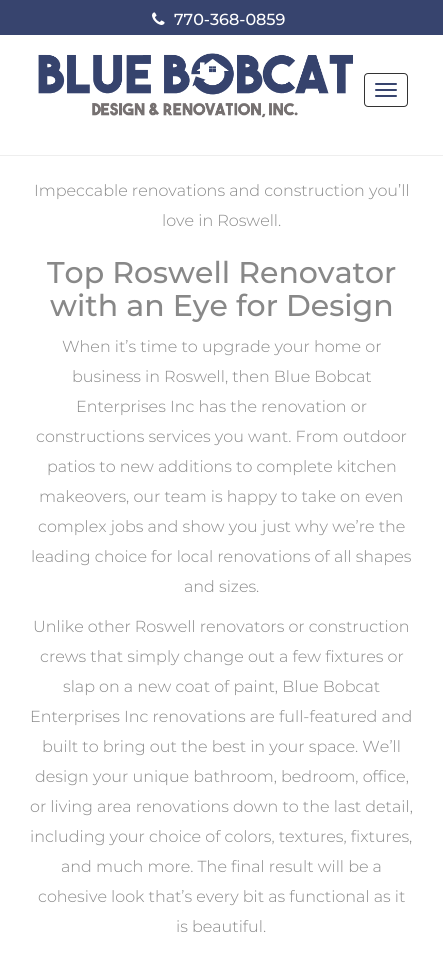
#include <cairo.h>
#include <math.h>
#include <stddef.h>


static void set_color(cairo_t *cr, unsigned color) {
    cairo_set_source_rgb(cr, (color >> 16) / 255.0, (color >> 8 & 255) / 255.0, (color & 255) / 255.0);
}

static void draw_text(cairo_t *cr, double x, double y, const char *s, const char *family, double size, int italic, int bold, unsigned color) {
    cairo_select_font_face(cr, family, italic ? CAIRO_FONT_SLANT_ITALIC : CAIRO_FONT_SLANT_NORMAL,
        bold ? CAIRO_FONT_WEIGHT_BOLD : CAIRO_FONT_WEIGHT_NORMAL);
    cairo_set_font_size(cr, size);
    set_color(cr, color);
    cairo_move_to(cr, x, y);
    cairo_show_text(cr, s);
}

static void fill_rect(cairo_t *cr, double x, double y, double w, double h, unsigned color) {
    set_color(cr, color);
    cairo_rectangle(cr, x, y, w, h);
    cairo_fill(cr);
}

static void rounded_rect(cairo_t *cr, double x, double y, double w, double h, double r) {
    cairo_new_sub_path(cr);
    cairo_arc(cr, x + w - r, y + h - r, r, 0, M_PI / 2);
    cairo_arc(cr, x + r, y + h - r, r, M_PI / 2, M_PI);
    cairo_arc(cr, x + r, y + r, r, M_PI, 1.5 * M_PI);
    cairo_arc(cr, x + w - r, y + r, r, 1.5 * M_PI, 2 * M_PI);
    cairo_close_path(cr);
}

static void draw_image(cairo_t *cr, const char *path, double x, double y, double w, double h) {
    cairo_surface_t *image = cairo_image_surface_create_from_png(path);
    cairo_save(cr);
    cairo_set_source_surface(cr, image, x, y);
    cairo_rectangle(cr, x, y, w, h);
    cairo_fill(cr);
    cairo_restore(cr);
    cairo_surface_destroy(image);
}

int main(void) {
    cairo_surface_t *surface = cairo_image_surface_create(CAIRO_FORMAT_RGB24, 443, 963);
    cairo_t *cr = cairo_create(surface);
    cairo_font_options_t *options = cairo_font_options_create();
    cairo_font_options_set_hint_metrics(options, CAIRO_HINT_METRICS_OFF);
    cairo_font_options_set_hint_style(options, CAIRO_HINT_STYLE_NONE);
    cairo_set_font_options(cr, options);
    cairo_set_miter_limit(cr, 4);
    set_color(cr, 0xFFFFFF);
    cairo_paint(cr);
    fill_rect(cr, 0, 0, 443, 35, 0x37446E);
    draw_image(cr, "assets/img1.png", 152, 12, 13, 13);
    draw_text(cr, 174, 25, "770-368-0859", "Montserrat Medium", 16, 0, 0, 0xFFFFFF);
    draw_image(cr, "assets/img2.png", 38, 53, 315, 65);
    rounded_rect(cr, 364.5, 73.5, 43, 33, 3.5);
    set_color(cr, 0x333333);
    cairo_set_line_width(cr, 1);
    cairo_stroke(cr);
    set_color(cr, 0x37446E);
    rounded_rect(cr, 375, 83, 22, 2, 1);
    cairo_fill(cr);
    rounded_rect(cr, 375, 89, 22, 2, 1);
    cairo_fill(cr);
    rounded_rect(cr, 375, 95, 22, 2, 1);
    cairo_fill(cr);
    fill_rect(cr, 0, 155, 443, 1, 0xEEEEEE);
    draw_text(cr, 34, 196, "Impeccable renovations and construction you’ll", "Montserrat Light", 16, 0, 0, 0x888888);
    draw_text(cr, 162, 226, "love in Roswell.", "Montserrat Light", 16, 0, 0, 0x888888);
    draw_text(cr, 47, 283, "Top Roswell Renovator", "Montserrat Medium", 30, 0, 0, 0x888888);
    draw_text(cr, 50, 316, "with an Eye for Design", "Montserrat Medium", 30, 0, 0, 0x888888);
    draw_text(cr, 62, 352, "When it’s time to upgrade your home or", "Montserrat Light", 16, 0, 0, 0x888888);
    draw_text(cr, 72, 382, "business in Roswell, then Blue Bobcat", "Montserrat Light", 16, 0, 0, 0x888888);
    draw_text(cr, 76, 412, "Enterprises Inc has the renovation or", "Montserrat Light", 16, 0, 0, 0x888888);
    draw_text(cr, 36, 442, "constructions services you want. From outdoor", "Montserrat Light", 16, 0, 0, 0x888888);
    draw_text(cr, 47, 472, "patios to new additions to complete kitchen", "Montserrat Light", 16, 0, 0, 0x888888);
    draw_text(cr, 39, 502, "makeovers, our team is happy to take on even", "Montserrat Light", 16, 0, 0, 0x888888);
    draw_text(cr, 38, 532, "complex jobs and show you just why we’re the", "Montserrat Light", 16, 0, 0, 0x888888);
    draw_text(cr, 31, 562, "leading choice for local renovations of all shapes", "Montserrat Light", 16, 0, 0, 0x888888);
    draw_text(cr, 184, 592, "and sizes.", "Montserrat Light", 16, 0, 0, 0x888888);
    draw_text(cr, 33, 632, "Unlike other Roswell renovators or construction", "Montserrat Light", 16, 0, 0, 0x888888);
    draw_text(cr, 40, 662, "crews that simply change out a few fixtures or", "Montserrat Light", 16, 0, 0, 0x888888);
    draw_text(cr, 63, 692, "slap on a new coat of paint, Blue Bobcat", "Montserrat Light", 16, 0, 0, 0x888888);
    draw_text(cr, 30, 722, "Enterprises Inc renovations are full-featured and", "Montserrat Light", 16, 0, 0, 0x888888);
    draw_text(cr, 42, 752, "built to bring out the best in your space. We’ll", "Montserrat Light", 16, 0, 0, 0x888888);
    draw_text(cr, 35, 782, "design your unique bathroom, bedroom, office,", "Montserrat Light", 16, 0, 0, 0x888888);
    draw_text(cr, 30, 812, "or living area renovations down to the last detail,", "Montserrat Light", 16, 0, 0, 0x888888);
    draw_text(cr, 30, 842, "including your choice of colors, textures, fixtures,", "Montserrat Light", 16, 0, 0, 0x888888);
    draw_text(cr, 61, 872, "and much more. The final result will be a", "Montserrat Light", 16, 0, 0, 0x888888);
    draw_text(cr, 38, 902, "cohesive look that’s every bit as functional as it", "Montserrat Light", 16, 0, 0, 0x888888);
    draw_text(cr, 176, 932, "is beautiful.", "Montserrat Light", 16, 0, 0, 0x888888);
    cairo_surface_write_to_png(surface, "output.png");
    cairo_font_options_destroy(options);
    cairo_destroy(cr);
    cairo_surface_destroy(surface);
    return 0;
}
